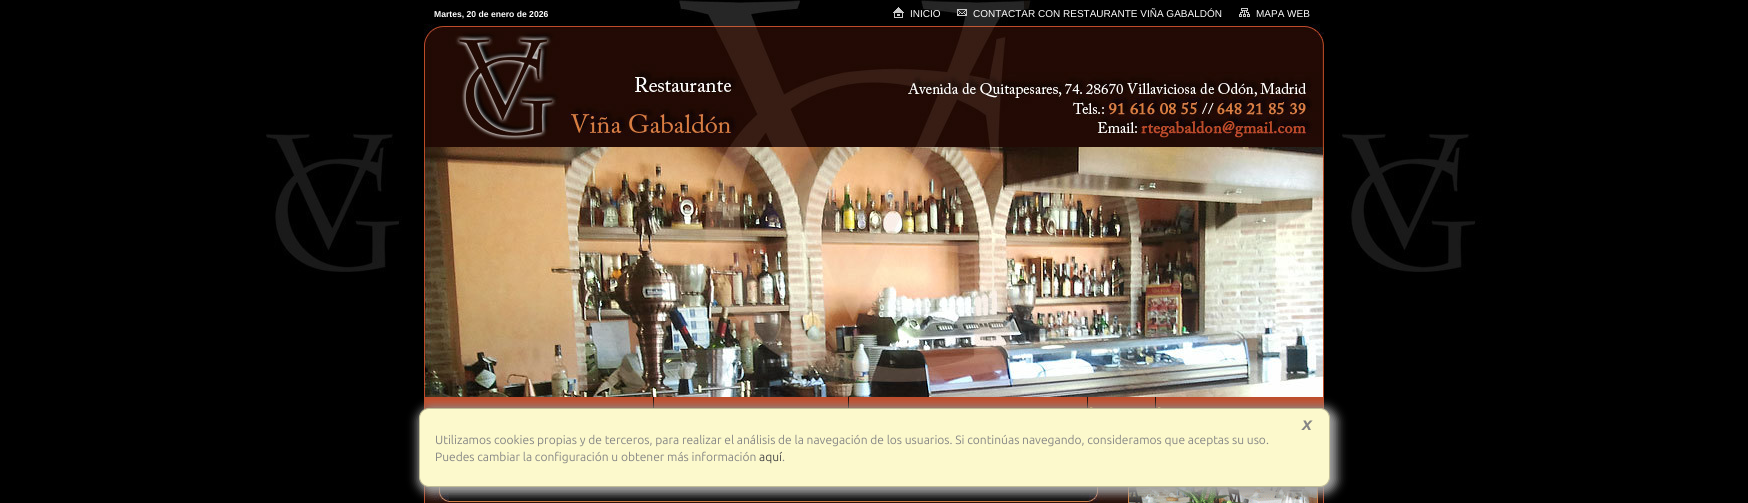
#include <cairo.h>
#include <math.h>
#include <stddef.h>


static void set_color(cairo_t *cr, unsigned color) {
    cairo_set_source_rgb(cr, (color >> 16) / 255.0, (color >> 8 & 255) / 255.0, (color & 255) / 255.0);
}

static void draw_text(cairo_t *cr, double x, double y, const char *s, const char *family, double size, int italic, int bold, unsigned color) {
    cairo_select_font_face(cr, family, italic ? CAIRO_FONT_SLANT_ITALIC : CAIRO_FONT_SLANT_NORMAL,
        bold ? CAIRO_FONT_WEIGHT_BOLD : CAIRO_FONT_WEIGHT_NORMAL);
    cairo_set_font_size(cr, size);
    set_color(cr, color);
    cairo_move_to(cr, x, y);
    cairo_show_text(cr, s);
}

static void fill_rect(cairo_t *cr, double x, double y, double w, double h, unsigned color) {
    set_color(cr, color);
    cairo_rectangle(cr, x, y, w, h);
    cairo_fill(cr);
}

static void rounded_rect(cairo_t *cr, double x, double y, double w, double h, double r) {
    cairo_new_sub_path(cr);
    cairo_arc(cr, x + w - r, y + h - r, r, 0, M_PI / 2);
    cairo_arc(cr, x + r, y + h - r, r, M_PI / 2, M_PI);
    cairo_arc(cr, x + r, y + r, r, M_PI, 1.5 * M_PI);
    cairo_arc(cr, x + w - r, y + r, r, 1.5 * M_PI, 2 * M_PI);
    cairo_close_path(cr);
}

static void draw_shadow(cairo_t *cr, double x, double y, double w, double h, double r, double blur, double alpha) {
    cairo_push_group_with_content(cr, CAIRO_CONTENT_ALPHA);
    cairo_set_operator(cr, CAIRO_OPERATOR_SOURCE);
    for (int i = 15; i >= -15 && fmin(w, h) + blur * i / 3 > 0; i -= 2) {
        double e = blur * i / 6;
        cairo_set_source_rgba(cr, 0, 0, 0, alpha * erfc((i - 1) / 8.5) / 2);
        rounded_rect(cr, x - e, y - e, w + 2 * e, h + 2 * e, fmax(0, fmin(r + e + blur * .6, fmin(w, h) / 2 + e)));
        cairo_fill(cr);
    }
    cairo_pattern_t *soft = cairo_pop_group(cr);
    cairo_mask(cr, soft);
    cairo_pattern_destroy(soft);
}

static void draw_image(cairo_t *cr, const char *path, double x, double y, double w, double h) {
    cairo_surface_t *image = cairo_image_surface_create_from_png(path);
    cairo_save(cr);
    cairo_set_source_surface(cr, image, x, y);
    cairo_rectangle(cr, x, y, w, h);
    cairo_fill(cr);
    cairo_restore(cr);
    cairo_surface_destroy(image);
}

int main(void) {
    cairo_surface_t *surface = cairo_image_surface_create(CAIRO_FORMAT_RGB24, 1748, 503);
    cairo_t *cr = cairo_create(surface);
    cairo_font_options_t *options = cairo_font_options_create();
    cairo_font_options_set_hint_metrics(options, CAIRO_HINT_METRICS_OFF);
    cairo_font_options_set_hint_style(options, CAIRO_HINT_STYLE_NONE);
    cairo_set_font_options(cr, options);
    cairo_set_miter_limit(cr, 4);
    set_color(cr, 0x000000);
    cairo_paint(cr);
    draw_image(cr, "assets/img1.png", 266, 133, 1216, 139);
    draw_image(cr, "assets/img2.png", 424, 0, 900, 147);
    draw_text(cr, 434, 17, "Martes, 20 de enero de 2026", "Liberation Sans", 8.6, 0, 1, 0xFFFFFF);
    draw_image(cr, "assets/img3.png", 893, 7, 11, 11);
    draw_text(cr, 910, 17, "INICIO", "Liberation Sans", 10, 0, 0, 0xFFFFFF);
    draw_image(cr, "assets/img4.png", 957, 9, 10, 7);
    draw_text(cr, 973, 17, "CONTACTAR CON RESTAURANTE VIÑA GABALDÓN", "Liberation Sans", 10, 0, 0, 0xFFFFFF);
    draw_image(cr, "assets/img5.png", 1239, 8, 11, 9);
    draw_text(cr, 1256, 17, "MAPA WEB", "Liberation Sans", 10, 0, 0, 0xFFFFFF);
    draw_image(cr, "assets/img6.png", 424, 147, 900, 250);
    fill_rect(cr, 425, 486, 898, 17, 0x220A03);
    draw_image(cr, "assets/img7.png", 433, 487, 672, 16);
    fill_rect(cr, 1323, 397, 1, 106, 0xBE4C29);
    fill_rect(cr, 424, 397, 1, 106, 0xBE4C29);
    draw_image(cr, "assets/img8.png", 425, 397, 898, 12);
    fill_rect(cr, 653, 397, 1, 11, 0x210A02);
    fill_rect(cr, 848, 397, 1, 11, 0x210A02);
    fill_rect(cr, 1087, 397, 1, 11, 0x210A02);
    fill_rect(cr, 1155, 397, 1, 11, 0x210A02);
    draw_image(cr, "assets/img9.png", 1090, 407, 3, 1);
    draw_image(cr, "assets/img9.png", 1158, 407, 3, 1);
    draw_image(cr, "assets/img10.png", 1128, 487, 190, 16);
    set_color(cr, 0xA6A6A6);
    draw_shadow(cr, 418, 407, 919, 87, 14, 5, 1);
    set_color(cr, 0xFCF9CC);
    rounded_rect(cr, 419.5, 408.5, 910, 78, 9.5);
    cairo_fill_preserve(cr);
    set_color(cr, 0xC0BD97);
    cairo_set_line_width(cr, 1);
    cairo_stroke(cr);
    draw_text(cr, 1302, 430, "x", "Liberation Sans", 18, 1, 1, 0x858585);
    draw_text(cr, 435, 444, "Utilizamos cookies propias y de terceros, para realizar el análisis de la navegación de los usuarios. Si continúas navegando, consideramos que aceptas su uso.", "Ubuntu", 12, 0, 0, 0x858585);
    draw_text(cr, 435, 461, "Puedes cambiar la configuración u obtener más información", "Ubuntu", 12, 0, 0, 0x858585);
    draw_text(cr, 759, 461, "aquí", "Ubuntu", 12, 0, 0, 0x464646);
    draw_text(cr, 782, 461, ".", "Ubuntu", 12, 0, 0, 0x858585);
    cairo_surface_write_to_png(surface, "output.png");
    cairo_font_options_destroy(options);
    cairo_destroy(cr);
    cairo_surface_destroy(surface);
    return 0;
}
